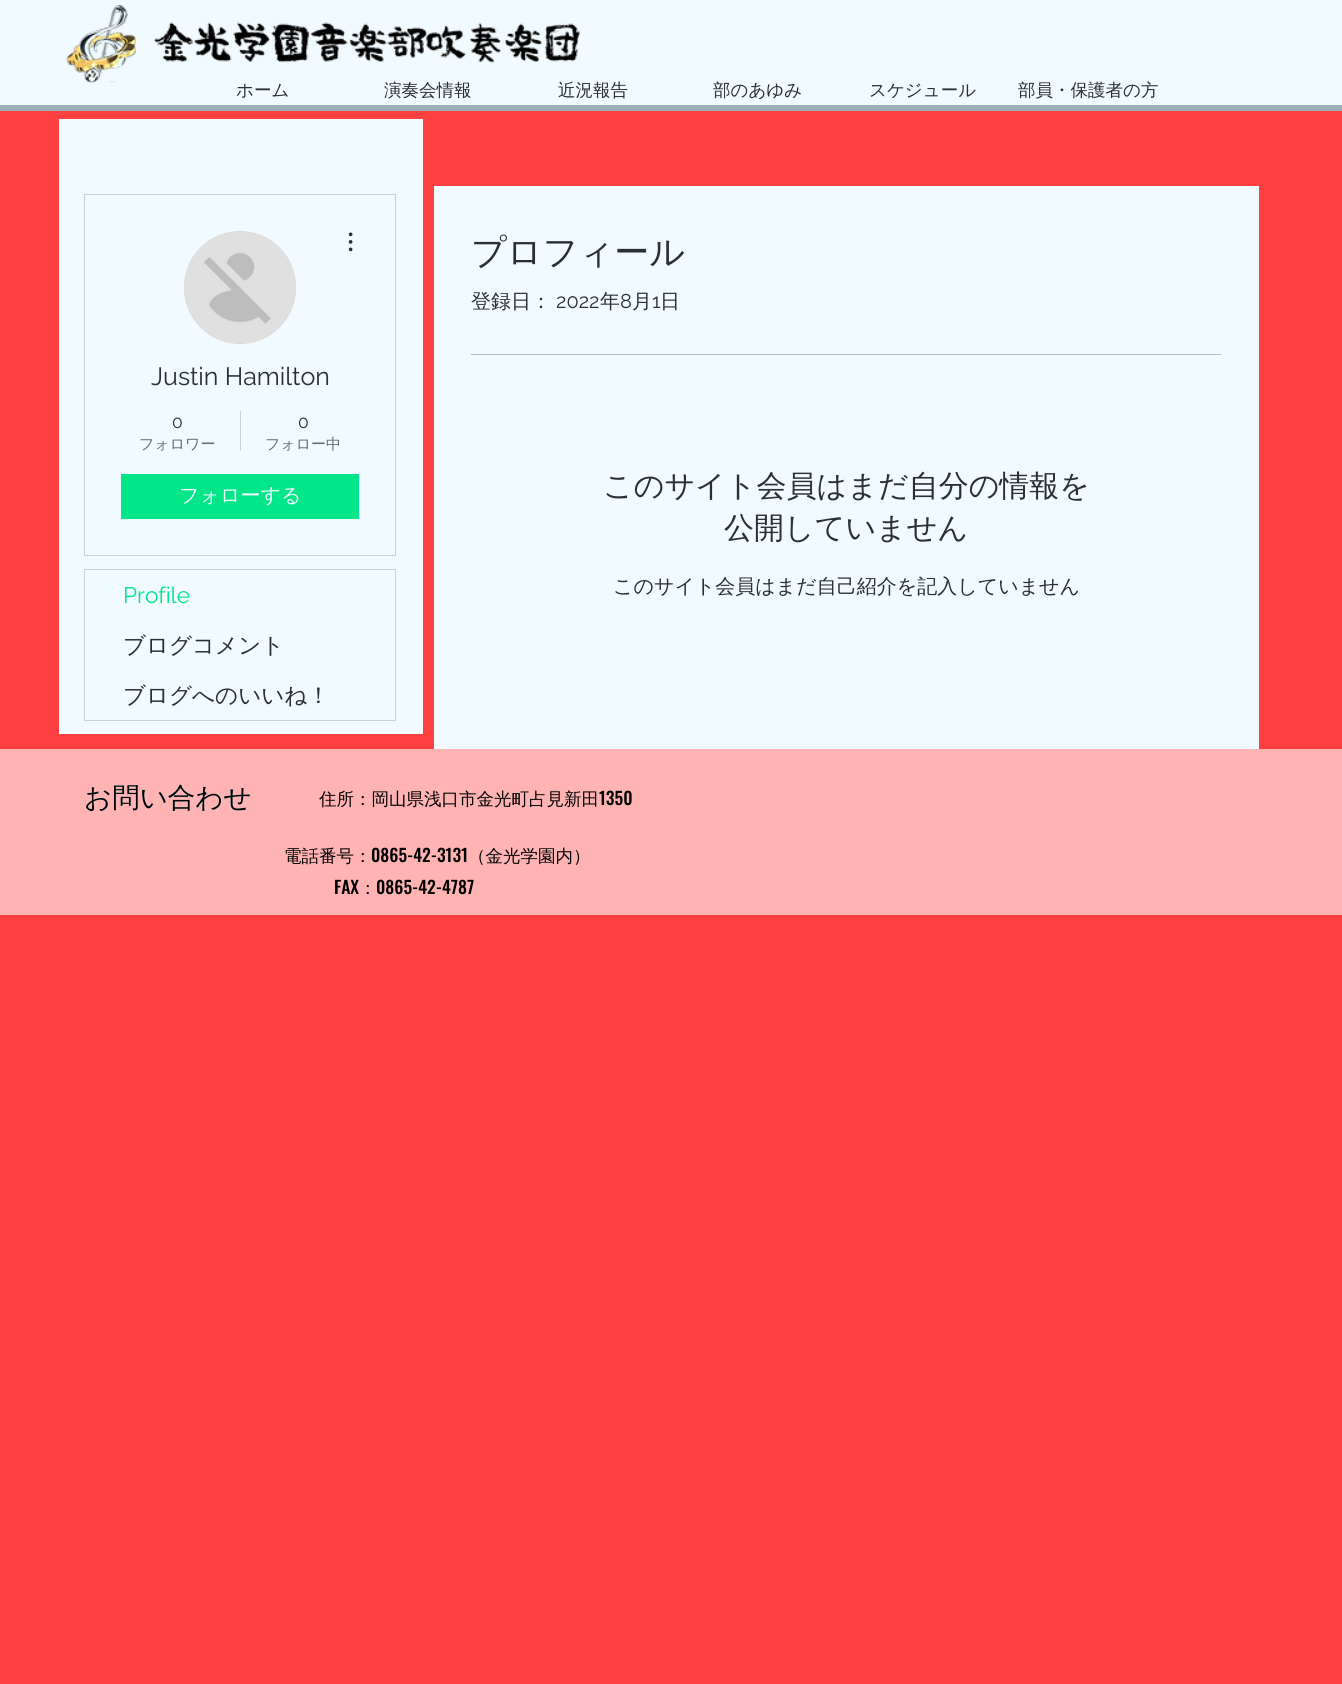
#include <cairo.h>
#include <math.h>
#include <stddef.h>


static void set_color(cairo_t *cr, unsigned color) {
    cairo_set_source_rgb(cr, (color >> 16) / 255.0, (color >> 8 & 255) / 255.0, (color & 255) / 255.0);
}

static void draw_text(cairo_t *cr, double x, double y, const char *s, const char *family, double size, int italic, int bold, unsigned color) {
    cairo_select_font_face(cr, family, italic ? CAIRO_FONT_SLANT_ITALIC : CAIRO_FONT_SLANT_NORMAL,
        bold ? CAIRO_FONT_WEIGHT_BOLD : CAIRO_FONT_WEIGHT_NORMAL);
    cairo_set_font_size(cr, size);
    set_color(cr, color);
    cairo_move_to(cr, x, y);
    cairo_show_text(cr, s);
}

static void fill_rect(cairo_t *cr, double x, double y, double w, double h, unsigned color) {
    set_color(cr, color);
    cairo_rectangle(cr, x, y, w, h);
    cairo_fill(cr);
}

static void rounded_rect(cairo_t *cr, double x, double y, double w, double h, double r) {
    cairo_new_sub_path(cr);
    cairo_arc(cr, x + w - r, y + h - r, r, 0, M_PI / 2);
    cairo_arc(cr, x + r, y + h - r, r, M_PI / 2, M_PI);
    cairo_arc(cr, x + r, y + r, r, M_PI, 1.5 * M_PI);
    cairo_arc(cr, x + w - r, y + r, r, 1.5 * M_PI, 2 * M_PI);
    cairo_close_path(cr);
}

static void draw_image(cairo_t *cr, const char *path, double x, double y, double w, double h) {
    cairo_surface_t *image = cairo_image_surface_create_from_png(path);
    cairo_save(cr);
    cairo_set_source_surface(cr, image, x, y);
    cairo_rectangle(cr, x, y, w, h);
    cairo_fill(cr);
    cairo_restore(cr);
    cairo_surface_destroy(image);
}

int main(void) {
    cairo_surface_t *surface = cairo_image_surface_create(CAIRO_FORMAT_RGB24, 1342, 1684);
    cairo_t *cr = cairo_create(surface);
    cairo_font_options_t *options = cairo_font_options_create();
    cairo_font_options_set_hint_metrics(options, CAIRO_HINT_METRICS_OFF);
    cairo_font_options_set_hint_style(options, CAIRO_HINT_STYLE_NONE);
    cairo_set_font_options(cr, options);
    cairo_set_miter_limit(cr, 4);
    set_color(cr, 0xFF4040);
    cairo_paint(cr);
    fill_rect(cr, 0, 0, 1342, 105, 0xF0FAFF);
    fill_rect(cr, 0, 105, 1342, 6, 0x9AAEB8);
    draw_image(cr, "assets/img1.png", 66, 5, 70, 78);
    draw_image(cr, "assets/img2.png", 153, 22, 428, 41);
    draw_text(cr, 236, 96, "ホーム", "WenQuanYi Zen Hei Medium", 17.5, 0, 0, 0x292F33);
    draw_text(cr, 384, 96, "演奏会情報", "WenQuanYi Zen Hei Medium", 17.5, 0, 0, 0x292F33);
    draw_text(cr, 558, 96, "近況報告", "WenQuanYi Zen Hei Medium", 17.5, 0, 0, 0x292F33);
    draw_text(cr, 713, 96, "部のあゆみ", "WenQuanYi Zen Hei Medium", 17.5, 0, 0, 0x292F33);
    draw_text(cr, 869, 96, "スケジュール", "WenQuanYi Zen Hei Medium", 17.5, 0, 0, 0x292F33);
    draw_text(cr, 1018, 96, "部員・保護者の方", "WenQuanYi Zen Hei Medium", 17.5, 0, 0, 0x292F33);
    fill_rect(cr, 59, 119, 364, 615, 0xF0FAFF);
    cairo_rectangle(cr, 84.5, 194.5, 311, 361);
    set_color(cr, 0xC8D1D6);
    cairo_set_line_width(cr, 1);
    cairo_stroke(cr);
    set_color(cr, 0xD8D8D8);
    rounded_rect(cr, 184, 231, 112, 113, 56);
    cairo_fill(cr);
    draw_image(cr, "assets/img3.png", 184, 232, 112, 111);
    draw_image(cr, "assets/img4.png", 348, 232, 5, 20);
    draw_text(cr, 151, 385, "Justin Hamilton", "Raleway", 25, 0, 0, 0x292F33);
    draw_text(cr, 172, 428, "0", "Raleway", 17.5, 0, 0, 0x292F33);
    draw_text(cr, 139, 449, "フォロワー", "WenQuanYi Zen Hei Medium", 15, 0, 0, 0x656C70);
    fill_rect(cr, 240, 411, 1, 40, 0xC8D1D6);
    draw_text(cr, 298, 428, "0", "Raleway", 17.5, 0, 0, 0x292F33);
    draw_text(cr, 265, 449, "フォロー中", "WenQuanYi Zen Hei Medium", 15, 0, 0, 0x656C70);
    fill_rect(cr, 121, 474, 238, 45, 0x00E689);
    draw_text(cr, 179, 502, "フォローする", "WenQuanYi Zen Hei Medium", 20, 0, 0, 0xF0FAFF);
    cairo_rectangle(cr, 84.5, 569.5, 311, 151);
    set_color(cr, 0xC8D1D6);
    cairo_stroke(cr);
    draw_text(cr, 123, 603, "Profile", "Raleway", 22.5, 0, 0, 0x00E689);
    draw_text(cr, 123, 653, "ブログコメント", "WenQuanYi Zen Hei Medium", 22.5, 0, 0, 0x292F33);
    draw_text(cr, 123, 703, "ブログへのいいね！", "WenQuanYi Zen Hei Medium", 22.5, 0, 0, 0x292F33);
    fill_rect(cr, 434, 186, 825, 563, 0xF0FAFF);
    draw_text(cr, 471, 264, "プロフィール", "WenQuanYi Zen Hei Medium", 35, 0, 0, 0x292F33);
    draw_text(cr, 471, 308, "登録日：", "WenQuanYi Zen Hei Medium", 20, 0, 0, 0x292F33);
    draw_text(cr, 556, 308, "2022", "Raleway", 20, 0, 0, 0x292F33);
    draw_text(cr, 600, 308, "年", "WenQuanYi Zen Hei Medium", 20, 0, 0, 0x292F33);
    draw_text(cr, 620, 308, "8", "Raleway", 20, 0, 0, 0x292F33);
    draw_text(cr, 632, 308, "月", "WenQuanYi Zen Hei Medium", 20, 0, 0, 0x292F33);
    draw_text(cr, 652, 308, "1", "Raleway", 20, 0, 0, 0x292F33);
    draw_text(cr, 660, 308, "日", "WenQuanYi Zen Hei Medium", 20, 0, 0, 0x292F33);
    fill_rect(cr, 471, 354, 750, 1, 0xB4BDC2);
    draw_text(cr, 603, 496, "このサイト会員はまだ自分の情報を", "WenQuanYi Zen Hei Medium", 30, 0, 0, 0x292F33);
    draw_text(cr, 724, 538, "公開していません", "WenQuanYi Zen Hei Medium", 30, 0, 0, 0x292F33);
    draw_text(cr, 613, 593, "このサイト会員はまだ自己紹介を記入していません", "WenQuanYi Zen Hei Medium", 20, 0, 0, 0x292F33);
    fill_rect(cr, 0, 749, 1342, 166, 0xFFB3B3);
    draw_text(cr, 84, 807, "お問い合わせ", "WenQuanYi Zen Hei Medium", 27.5, 0, 0, 0xF0FAFF);
    draw_text(cr, 84, 807, "お問い合わせ", "WenQuanYi Zen Hei Medium", 27.5, 0, 0, 0x000000);
    draw_text(cr, 319, 805, "住所：岡山県浅口市金光町占見新田", "WenQuanYi Zen Hei Medium", 17.5, 0, 0, 0x000000);
    draw_text(cr, 599, 805, "1350", "Oswald Medium", 17.5, 0, 0, 0x000000);
    draw_text(cr, 284, 862, "電話番号：", "WenQuanYi Zen Hei Medium", 17.5, 0, 0, 0x000000);
    draw_text(cr, 371, 862, "0865-42-3131", "Oswald Medium", 17.5, 0, 0, 0x000000);
    draw_text(cr, 468, 862, "（金光学園内）", "WenQuanYi Zen Hei Medium", 17.5, 0, 0, 0x000000);
    draw_text(cr, 334, 894, "FAX", "Oswald Medium", 17.5, 0, 0, 0x000000);
    draw_text(cr, 359, 894, "：", "WenQuanYi Zen Hei Medium", 17.5, 0, 0, 0x000000);
    draw_text(cr, 376, 894, "0865-42-4787", "Oswald Medium", 17.5, 0, 0, 0x000000);
    cairo_surface_write_to_png(surface, "output.png");
    cairo_font_options_destroy(options);
    cairo_destroy(cr);
    cairo_surface_destroy(surface);
    return 0;
}
